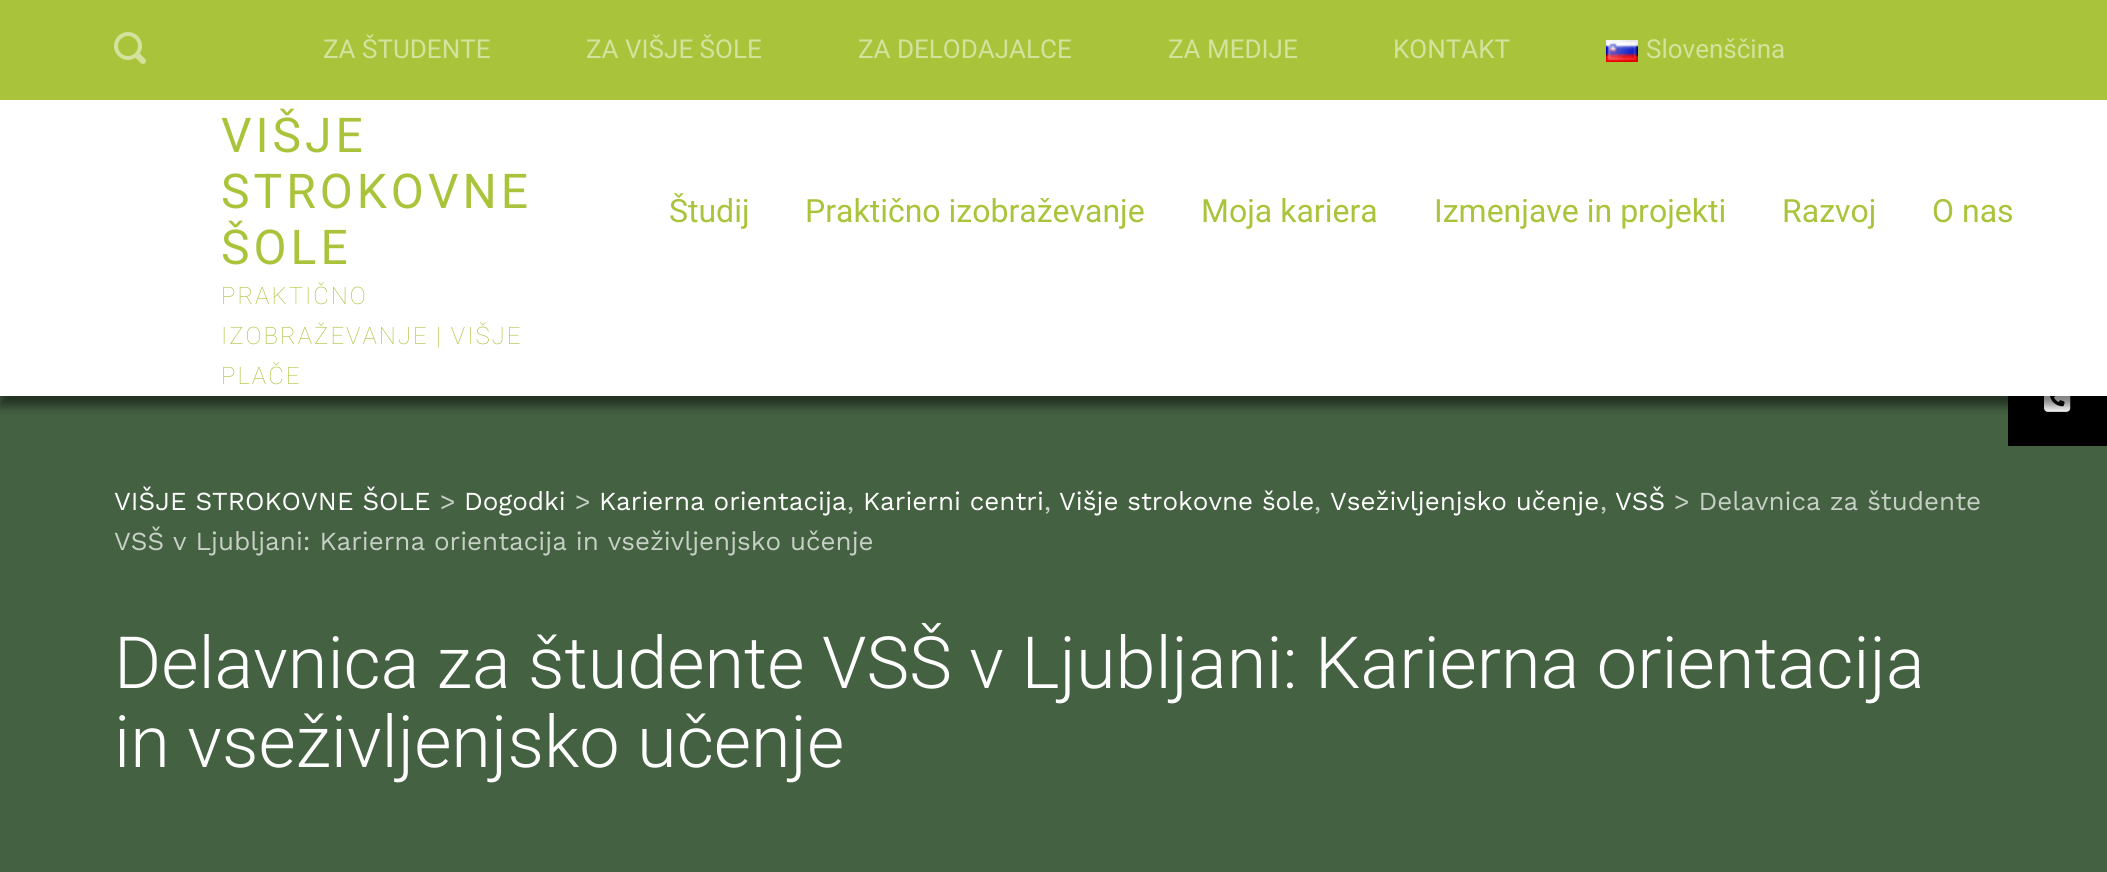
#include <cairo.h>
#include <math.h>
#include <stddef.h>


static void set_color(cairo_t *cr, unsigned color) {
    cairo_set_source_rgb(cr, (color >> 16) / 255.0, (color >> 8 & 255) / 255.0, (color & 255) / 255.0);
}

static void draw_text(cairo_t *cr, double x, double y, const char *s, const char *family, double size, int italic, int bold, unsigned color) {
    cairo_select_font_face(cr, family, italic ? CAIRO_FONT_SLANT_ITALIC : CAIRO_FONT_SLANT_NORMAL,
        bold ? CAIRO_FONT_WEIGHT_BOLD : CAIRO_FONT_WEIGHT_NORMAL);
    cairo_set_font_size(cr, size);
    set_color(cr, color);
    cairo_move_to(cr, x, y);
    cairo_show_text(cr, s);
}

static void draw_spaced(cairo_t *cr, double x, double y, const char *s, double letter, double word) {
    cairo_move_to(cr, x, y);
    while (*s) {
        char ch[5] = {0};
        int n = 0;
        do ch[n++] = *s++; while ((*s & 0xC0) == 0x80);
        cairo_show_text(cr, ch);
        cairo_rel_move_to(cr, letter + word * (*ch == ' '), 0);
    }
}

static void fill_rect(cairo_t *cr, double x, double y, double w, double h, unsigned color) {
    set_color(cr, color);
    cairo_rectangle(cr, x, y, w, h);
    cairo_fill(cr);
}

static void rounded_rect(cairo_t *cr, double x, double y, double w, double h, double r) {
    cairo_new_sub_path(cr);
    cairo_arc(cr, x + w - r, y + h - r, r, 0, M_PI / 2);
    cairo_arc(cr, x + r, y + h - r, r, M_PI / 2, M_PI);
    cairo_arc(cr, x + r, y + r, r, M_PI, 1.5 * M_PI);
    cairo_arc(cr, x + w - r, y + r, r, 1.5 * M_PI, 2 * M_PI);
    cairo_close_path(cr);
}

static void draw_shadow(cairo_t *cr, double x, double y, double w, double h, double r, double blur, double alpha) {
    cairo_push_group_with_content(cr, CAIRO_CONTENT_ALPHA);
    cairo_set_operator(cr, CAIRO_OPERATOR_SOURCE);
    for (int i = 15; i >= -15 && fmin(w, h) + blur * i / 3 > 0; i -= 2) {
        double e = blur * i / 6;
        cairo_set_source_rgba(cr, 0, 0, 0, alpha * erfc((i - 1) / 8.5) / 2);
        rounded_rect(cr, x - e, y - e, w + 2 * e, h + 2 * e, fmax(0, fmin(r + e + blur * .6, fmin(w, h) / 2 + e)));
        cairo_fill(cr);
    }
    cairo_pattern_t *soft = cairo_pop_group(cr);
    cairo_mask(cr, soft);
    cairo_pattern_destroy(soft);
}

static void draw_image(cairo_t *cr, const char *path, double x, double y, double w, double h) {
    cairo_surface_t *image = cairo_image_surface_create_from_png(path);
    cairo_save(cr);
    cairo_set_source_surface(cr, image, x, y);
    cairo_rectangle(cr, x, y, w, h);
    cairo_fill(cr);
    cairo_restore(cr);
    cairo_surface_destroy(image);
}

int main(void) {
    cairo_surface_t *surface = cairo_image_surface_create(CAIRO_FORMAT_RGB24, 2107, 872);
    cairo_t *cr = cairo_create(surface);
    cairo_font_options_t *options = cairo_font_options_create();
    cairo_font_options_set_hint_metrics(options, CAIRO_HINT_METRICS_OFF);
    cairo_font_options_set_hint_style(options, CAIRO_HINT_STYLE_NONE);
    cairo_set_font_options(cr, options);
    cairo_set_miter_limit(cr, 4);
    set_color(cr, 0x446142);
    cairo_paint(cr);
    fill_rect(cr, 2008, 396, 99, 50, 0x000000);
    draw_image(cr, "assets/img3.png", 2044, 396, 27, 16);
    set_color(cr, 0x000000);
    draw_shadow(cr, 0, 10, 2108, 396, 0, 5, 0.5);
    fill_rect(cr, 0, 100, 2107, 296, 0xFFFFFF);
    fill_rect(cr, 0, 0, 2107, 100, 0xA9C43B);
    draw_image(cr, "assets/img1.png", 114, 32, 32, 32);
    draw_text(cr, 323, 58, "ZA ŠTUDENTE", "Roboto", 26, 0, 0, 0xD4E29D);
    draw_text(cr, 586, 58, "ZA VIŠJE ŠOLE", "Roboto", 26, 0, 0, 0xD4E29D);
    draw_text(cr, 858, 58, "ZA DELODAJALCE", "Roboto", 26, 0, 0, 0xD4E29D);
    draw_text(cr, 1168, 58, "ZA MEDIJE", "Roboto", 26, 0, 0, 0xD4E29D);
    draw_text(cr, 1393, 58, "KONTAKT", "Roboto", 26, 0, 0, 0xD4E29D);
    draw_image(cr, "assets/img2.png", 1606, 40, 32, 22);
    draw_text(cr, 1646, 58, "Slovenščina", "Roboto", 26, 0, 0, 0xD4E29D);
    cairo_set_font_size(cr, 48);
    set_color(cr, 0xA9C43B);
    draw_spaced(cr, 221, 152, "VIŠJE", 4, 0);
    draw_spaced(cr, 221, 208, "STROKOVNE", 4, 0);
    draw_spaced(cr, 221, 264, "ŠOLE", 4, 0);
    cairo_select_font_face(cr, "Roboto Thin", CAIRO_FONT_SLANT_NORMAL, CAIRO_FONT_WEIGHT_NORMAL);
    cairo_set_font_size(cr, 24);
    draw_spaced(cr, 221, 304, "PRAKTIČNO", 2, 0);
    draw_spaced(cr, 221, 344, "IZOBRAŽEVANJE | VIŠJE", 2, 0);
    draw_spaced(cr, 221, 384, "PLAČE", 2, 0);
    draw_text(cr, 669, 222, "Študij", "Roboto", 32, 0, 0, 0xA9C43B);
    draw_text(cr, 805, 222, "Praktično izobraževanje", "Roboto", 32, 0, 0, 0xA9C43B);
    draw_text(cr, 1201, 222, "Moja kariera", "Roboto", 32, 0, 0, 0xA9C43B);
    draw_text(cr, 1434, 222, "Izmenjave in projekti", "Roboto", 32, 0, 0, 0xA9C43B);
    draw_text(cr, 1782, 222, "Razvoj", "Roboto", 32, 0, 0, 0xA9C43B);
    draw_text(cr, 1932, 222, "O nas", "Roboto", 32, 0, 0, 0xA9C43B);
    draw_text(cr, 114, 510, "VIŠJE STROKOVNE ŠOLE", "Work Sans", 26, 0, 0, 0xFFFFFF);
    draw_text(cr, 440, 510, ">", "Work Sans", 26, 0, 0, 0xC7D0C6);
    draw_text(cr, 464, 510, "Dogodki", "Work Sans", 26, 0, 0, 0xFFFFFF);
    draw_text(cr, 575, 510, ">", "Work Sans", 26, 0, 0, 0xC7D0C6);
    draw_text(cr, 599, 510, "Karierna orientacija", "Work Sans", 26, 0, 0, 0xFFFFFF);
    draw_text(cr, 847, 510, ",", "Work Sans", 26, 0, 0, 0xC7D0C6);
    draw_text(cr, 863, 510, "Karierni centri", "Work Sans", 26, 0, 0, 0xFFFFFF);
    draw_text(cr, 1044, 510, ",", "Work Sans", 26, 0, 0, 0xC7D0C6);
    draw_text(cr, 1059, 510, "Višje strokovne šole", "Work Sans", 26, 0, 0, 0xFFFFFF);
    draw_text(cr, 1314, 510, ",", "Work Sans", 26, 0, 0, 0xC7D0C6);
    draw_text(cr, 1330, 510, "Vseživljenjsko učenje", "Work Sans", 26, 0, 0, 0xFFFFFF);
    draw_text(cr, 1600, 510, ",", "Work Sans", 26, 0, 0, 0xC7D0C6);
    draw_text(cr, 1615, 510, "VSŠ", "Work Sans", 26, 0, 0, 0xFFFFFF);
    draw_text(cr, 1674, 510, "> Delavnica za študente", "Work Sans", 26, 0, 0, 0xC7D0C6);
    draw_text(cr, 114, 550, "VSŠ v Ljubljani: Karierna orientacija in vseživljenjsko učenje", "Work Sans", 26, 0, 0, 0xC7D0C6);
    draw_text(cr, 114, 688, "Delavnica za študente VSŠ v Ljubljani: Karierna orientacija", "Roboto Light", 72, 0, 0, 0xFFFFFF);
    draw_text(cr, 114, 767, "in vseživljenjsko učenje", "Roboto Light", 72, 0, 0, 0xFFFFFF);
    cairo_surface_write_to_png(surface, "output.png");
    cairo_font_options_destroy(options);
    cairo_destroy(cr);
    cairo_surface_destroy(surface);
    return 0;
}
